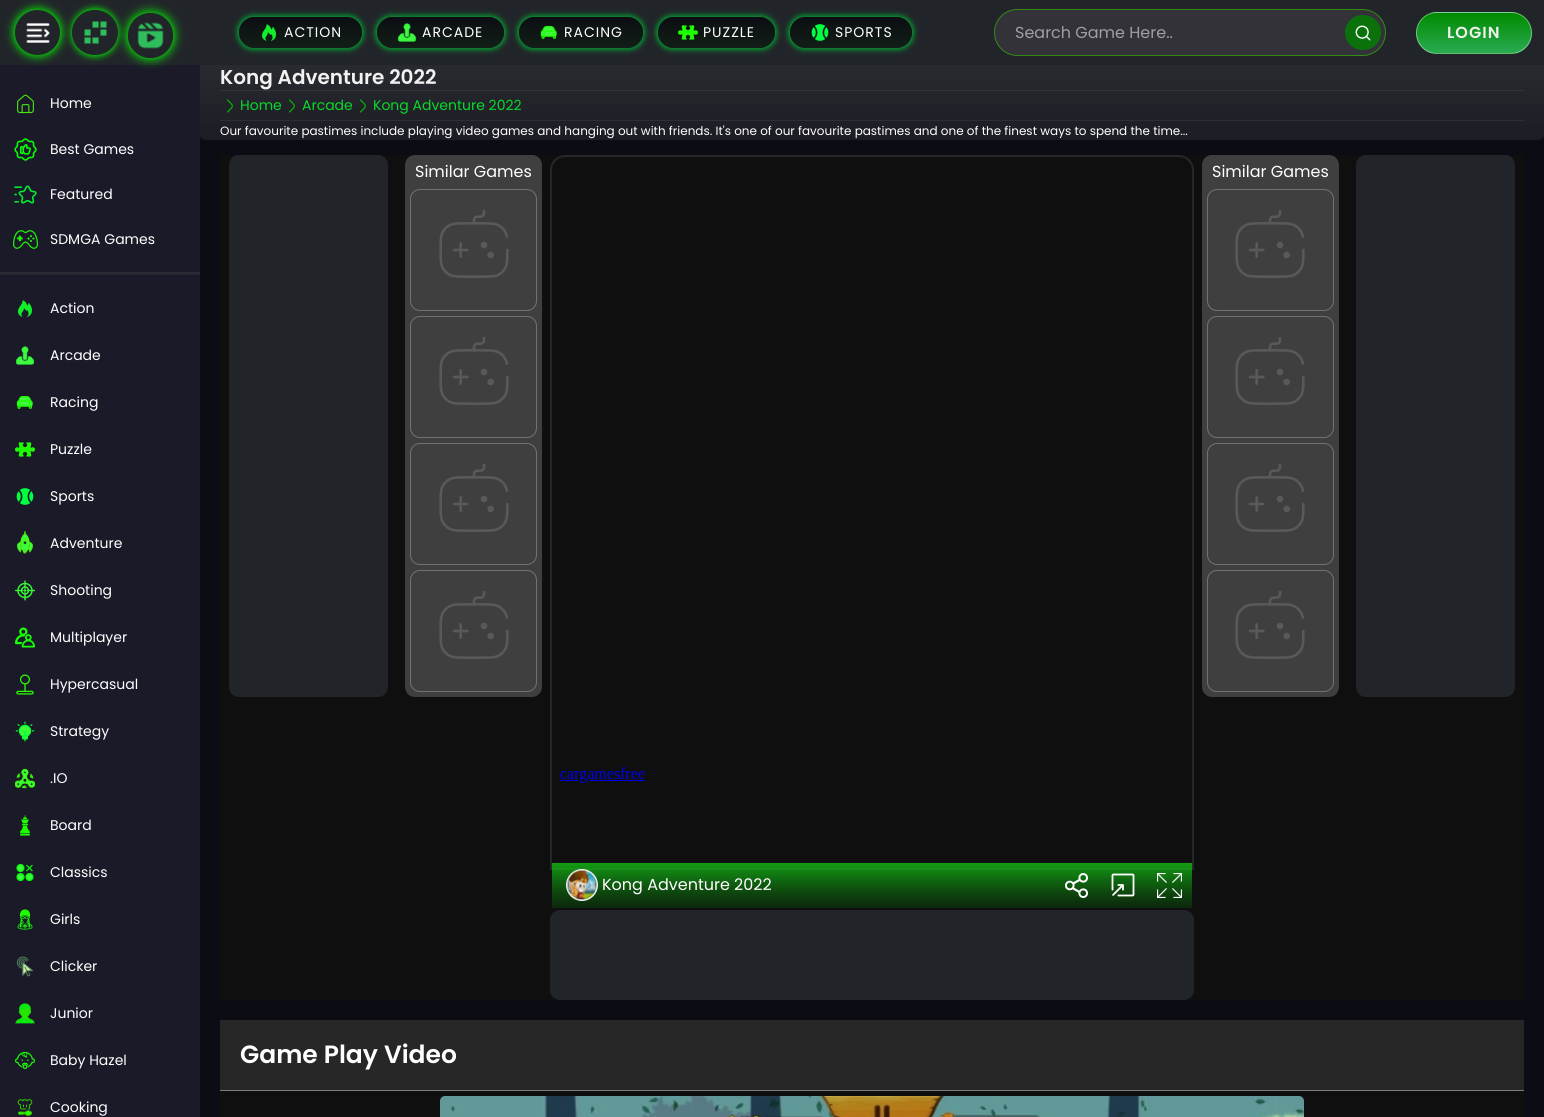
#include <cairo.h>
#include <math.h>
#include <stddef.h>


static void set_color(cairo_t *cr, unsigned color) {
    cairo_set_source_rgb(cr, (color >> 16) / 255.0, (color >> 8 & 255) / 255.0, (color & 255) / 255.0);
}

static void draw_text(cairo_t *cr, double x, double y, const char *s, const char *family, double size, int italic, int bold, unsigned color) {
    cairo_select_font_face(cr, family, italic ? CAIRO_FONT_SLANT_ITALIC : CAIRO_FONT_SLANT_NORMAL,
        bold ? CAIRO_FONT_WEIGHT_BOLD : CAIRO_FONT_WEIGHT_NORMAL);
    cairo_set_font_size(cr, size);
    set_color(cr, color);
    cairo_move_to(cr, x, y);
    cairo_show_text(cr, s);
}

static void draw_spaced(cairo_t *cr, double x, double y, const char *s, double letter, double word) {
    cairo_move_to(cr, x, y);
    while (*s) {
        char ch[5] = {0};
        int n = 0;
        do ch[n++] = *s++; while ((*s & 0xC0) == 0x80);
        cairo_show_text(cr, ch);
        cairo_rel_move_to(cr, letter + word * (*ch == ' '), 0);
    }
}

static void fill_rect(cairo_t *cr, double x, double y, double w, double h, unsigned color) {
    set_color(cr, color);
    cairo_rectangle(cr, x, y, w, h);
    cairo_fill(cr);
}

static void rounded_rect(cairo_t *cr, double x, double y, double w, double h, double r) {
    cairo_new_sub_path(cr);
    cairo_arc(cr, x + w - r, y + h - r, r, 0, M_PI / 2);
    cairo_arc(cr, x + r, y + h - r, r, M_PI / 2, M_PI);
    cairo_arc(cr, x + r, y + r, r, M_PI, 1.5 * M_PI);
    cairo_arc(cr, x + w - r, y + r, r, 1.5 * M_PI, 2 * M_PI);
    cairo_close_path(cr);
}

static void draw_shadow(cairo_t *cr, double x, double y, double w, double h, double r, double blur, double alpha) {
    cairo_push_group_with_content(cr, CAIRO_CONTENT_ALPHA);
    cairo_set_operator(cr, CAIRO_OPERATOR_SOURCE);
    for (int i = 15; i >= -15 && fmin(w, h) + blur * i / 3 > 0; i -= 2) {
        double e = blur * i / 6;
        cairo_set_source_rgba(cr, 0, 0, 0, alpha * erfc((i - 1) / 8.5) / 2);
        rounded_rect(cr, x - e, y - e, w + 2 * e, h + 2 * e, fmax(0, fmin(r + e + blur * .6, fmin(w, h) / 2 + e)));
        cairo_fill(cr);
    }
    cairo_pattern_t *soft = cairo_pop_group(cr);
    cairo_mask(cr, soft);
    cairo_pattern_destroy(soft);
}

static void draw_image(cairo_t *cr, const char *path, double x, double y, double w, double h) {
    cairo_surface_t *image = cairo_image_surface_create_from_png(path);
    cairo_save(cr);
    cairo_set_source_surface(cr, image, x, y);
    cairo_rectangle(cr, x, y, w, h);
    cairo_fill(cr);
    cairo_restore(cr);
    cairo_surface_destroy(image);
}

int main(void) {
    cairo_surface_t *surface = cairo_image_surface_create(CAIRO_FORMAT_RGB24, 1544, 1117);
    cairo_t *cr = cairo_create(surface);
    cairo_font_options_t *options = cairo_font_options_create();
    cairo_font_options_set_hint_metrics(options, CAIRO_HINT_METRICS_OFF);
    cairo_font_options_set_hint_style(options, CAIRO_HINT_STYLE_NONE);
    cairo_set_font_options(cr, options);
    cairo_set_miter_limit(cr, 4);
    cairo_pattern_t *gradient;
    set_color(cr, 0x0C0D14);
    cairo_paint(cr);
    gradient = cairo_pattern_create_linear(872, 50, 872, 140);
    cairo_pattern_add_color_stop_rgba(gradient, 0, 0.173, 0.176, 0.2, 1);
    cairo_pattern_add_color_stop_rgba(gradient, 1, 0.11, 0.114, 0.141, 1);
    cairo_set_source(cr, gradient);
    cairo_pattern_destroy(gradient);
    rounded_rect(cr, 200, 50, 1344, 90, 5);
    cairo_fill(cr);
    fill_rect(cr, 0, 0, 1544, 65, 0x212529);
    fill_rect(cr, 0, 65, 200, 1052, 0x1A1A29);
    set_color(cr, 0x00FF00);
    draw_shadow(cr, 14, 9, 47, 47, 23.5, 4.5, 1);
    set_color(cr, 0x212529);
    cairo_arc(cr, 37.5, 32.5, 21.5, 0, 2 * M_PI);
    cairo_fill_preserve(cr);
    cairo_stroke(cr);
    draw_image(cr, "assets/img1.png", 26, 23, 24, 20);
    set_color(cr, 0x00FF00);
    draw_shadow(cr, 72, 9, 46, 47, 23, 3.5, 1);
    set_color(cr, 0x212529);
    rounded_rect(cr, 72.5, 10.5, 45, 44, 22);
    cairo_fill_preserve(cr);
    cairo_set_line_width(cr, 1);
    cairo_stroke(cr);
    draw_image(cr, "assets/img2.png", 84, 21, 23, 23);
    cairo_save(cr);
    cairo_set_fill_rule(cr, CAIRO_FILL_RULE_EVEN_ODD);
    cairo_new_path(cr);
    cairo_move_to(cr, 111, 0);
    cairo_line_to(cr, 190, 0);
    cairo_line_to(cr, 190, 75);
    cairo_line_to(cr, 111, 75);
    cairo_close_path(cr);
    cairo_move_to(cr, 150.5, 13);
    cairo_curve_to(cr, 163, 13, 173, 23, 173, 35.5);
    cairo_curve_to(cr, 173, 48, 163, 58, 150.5, 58);
    cairo_curve_to(cr, 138, 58, 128, 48, 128, 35.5);
    cairo_curve_to(cr, 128, 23, 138, 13, 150.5, 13);
    cairo_close_path(cr);
    cairo_clip(cr);
    set_color(cr, 0x00FF00);
    draw_shadow(cr, 127, 12, 47, 47, 23.5, 5, 1);
    cairo_restore(cr);
    draw_image(cr, "assets/img3.png", 137, 22, 27, 27);
    cairo_save(cr);
    cairo_set_fill_rule(cr, CAIRO_FILL_RULE_EVEN_ODD);
    cairo_new_path(cr);
    cairo_move_to(cr, 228, 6);
    cairo_line_to(cr, 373, 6);
    cairo_line_to(cr, 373, 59);
    cairo_line_to(cr, 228, 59);
    cairo_close_path(cr);
    cairo_move_to(cr, 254.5, 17);
    cairo_line_to(cr, 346.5, 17);
    cairo_curve_to(cr, 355, 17, 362, 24, 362, 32.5);
    cairo_curve_to(cr, 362, 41, 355, 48, 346.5, 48);
    cairo_line_to(cr, 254.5, 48);
    cairo_curve_to(cr, 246, 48, 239, 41, 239, 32.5);
    cairo_curve_to(cr, 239, 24, 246, 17, 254.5, 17);
    cairo_close_path(cr);
    cairo_clip(cr);
    set_color(cr, 0x049B31);
    draw_shadow(cr, 237, 15, 127, 35, 17.5, 2.5, 1);
    cairo_restore(cr);
    gradient = cairo_pattern_create_linear(301, 17, 301, 59);
    cairo_pattern_add_color_stop_rgba(gradient, 0, 0.047, 0.051, 0.078, 1);
    cairo_pattern_add_color_stop_rgba(gradient, 1, 0.012, 0.102, 0.012, 0.33);
    cairo_set_source(cr, gradient);
    cairo_pattern_destroy(gradient);
    rounded_rect(cr, 239, 17, 123, 31, 15.5);
    cairo_fill(cr);
    draw_image(cr, "assets/img4.png", 262, 24, 14, 17);
    cairo_select_font_face(cr, "Poppins", CAIRO_FONT_SLANT_NORMAL, CAIRO_FONT_WEIGHT_NORMAL);
    cairo_set_font_size(cr, 14);
    set_color(cr, 0xFFFFFF);
    draw_spaced(cr, 284, 37, "ACTION", 1, 0);
    cairo_save(cr);
    cairo_set_fill_rule(cr, CAIRO_FILL_RULE_EVEN_ODD);
    cairo_new_path(cr);
    cairo_move_to(cr, 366, 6);
    cairo_line_to(cr, 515, 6);
    cairo_line_to(cr, 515, 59);
    cairo_line_to(cr, 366, 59);
    cairo_close_path(cr);
    cairo_move_to(cr, 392.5, 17);
    cairo_line_to(cr, 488.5, 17);
    cairo_curve_to(cr, 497, 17, 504, 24, 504, 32.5);
    cairo_curve_to(cr, 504, 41, 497, 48, 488.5, 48);
    cairo_line_to(cr, 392.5, 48);
    cairo_curve_to(cr, 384, 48, 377, 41, 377, 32.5);
    cairo_curve_to(cr, 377, 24, 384, 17, 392.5, 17);
    cairo_close_path(cr);
    cairo_clip(cr);
    set_color(cr, 0x049B31);
    draw_shadow(cr, 375, 15, 131, 35, 17.5, 2.5, 1);
    cairo_restore(cr);
    gradient = cairo_pattern_create_linear(441, 17, 441, 59);
    cairo_pattern_add_color_stop_rgba(gradient, 0, 0.047, 0.051, 0.078, 1);
    cairo_pattern_add_color_stop_rgba(gradient, 1, 0.012, 0.102, 0.012, 0.33);
    cairo_set_source(cr, gradient);
    cairo_pattern_destroy(gradient);
    rounded_rect(cr, 377, 17, 127, 31, 15.5);
    cairo_fill(cr);
    draw_image(cr, "assets/img5.png", 397, 23, 20, 19);
    set_color(cr, 0xFFFFFF);
    draw_spaced(cr, 422, 37, "ARCADE", 1, 0);
    cairo_save(cr);
    cairo_set_fill_rule(cr, CAIRO_FILL_RULE_EVEN_ODD);
    cairo_new_path(cr);
    cairo_move_to(cr, 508, 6);
    cairo_line_to(cr, 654, 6);
    cairo_line_to(cr, 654, 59);
    cairo_line_to(cr, 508, 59);
    cairo_close_path(cr);
    cairo_move_to(cr, 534.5, 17);
    cairo_line_to(cr, 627.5, 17);
    cairo_curve_to(cr, 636, 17, 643, 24, 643, 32.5);
    cairo_curve_to(cr, 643, 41, 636, 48, 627.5, 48);
    cairo_line_to(cr, 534.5, 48);
    cairo_curve_to(cr, 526, 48, 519, 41, 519, 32.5);
    cairo_curve_to(cr, 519, 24, 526, 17, 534.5, 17);
    cairo_close_path(cr);
    cairo_clip(cr);
    set_color(cr, 0x049B31);
    draw_shadow(cr, 517, 15, 128, 35, 17.5, 2.5, 1);
    cairo_restore(cr);
    gradient = cairo_pattern_create_linear(581, 17, 581, 59);
    cairo_pattern_add_color_stop_rgba(gradient, 0, 0.047, 0.051, 0.078, 1);
    cairo_pattern_add_color_stop_rgba(gradient, 1, 0.012, 0.102, 0.012, 0.33);
    cairo_set_source(cr, gradient);
    cairo_pattern_destroy(gradient);
    rounded_rect(cr, 519, 17, 124, 31, 15.5);
    cairo_fill(cr);
    draw_image(cr, "assets/img6.png", 540, 26, 17, 13);
    set_color(cr, 0xFFFFFF);
    draw_spaced(cr, 564, 37, "RACING", 1, 0);
    cairo_save(cr);
    cairo_set_fill_rule(cr, CAIRO_FILL_RULE_EVEN_ODD);
    cairo_new_path(cr);
    cairo_move_to(cr, 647, 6);
    cairo_line_to(cr, 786, 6);
    cairo_line_to(cr, 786, 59);
    cairo_line_to(cr, 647, 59);
    cairo_close_path(cr);
    cairo_move_to(cr, 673.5, 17);
    cairo_line_to(cr, 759.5, 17);
    cairo_curve_to(cr, 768, 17, 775, 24, 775, 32.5);
    cairo_curve_to(cr, 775, 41, 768, 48, 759.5, 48);
    cairo_line_to(cr, 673.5, 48);
    cairo_curve_to(cr, 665, 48, 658, 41, 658, 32.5);
    cairo_curve_to(cr, 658, 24, 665, 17, 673.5, 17);
    cairo_close_path(cr);
    cairo_clip(cr);
    set_color(cr, 0x049B31);
    draw_shadow(cr, 656, 15, 121, 35, 17.5, 2.5, 1);
    cairo_restore(cr);
    gradient = cairo_pattern_create_linear(717, 17, 717, 59);
    cairo_pattern_add_color_stop_rgba(gradient, 0, 0.047, 0.051, 0.078, 1);
    cairo_pattern_add_color_stop_rgba(gradient, 1, 0.012, 0.102, 0.012, 0.33);
    cairo_set_source(cr, gradient);
    cairo_pattern_destroy(gradient);
    rounded_rect(cr, 658, 17, 117, 31, 15.5);
    cairo_fill(cr);
    draw_image(cr, "assets/img7.png", 678, 25, 20, 15);
    set_color(cr, 0xFFFFFF);
    draw_spaced(cr, 703, 37, "PUZZLE", 1, 0);
    cairo_save(cr);
    cairo_set_fill_rule(cr, CAIRO_FILL_RULE_EVEN_ODD);
    cairo_new_path(cr);
    cairo_move_to(cr, 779, 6);
    cairo_line_to(cr, 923, 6);
    cairo_line_to(cr, 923, 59);
    cairo_line_to(cr, 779, 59);
    cairo_close_path(cr);
    cairo_move_to(cr, 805.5, 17);
    cairo_line_to(cr, 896.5, 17);
    cairo_curve_to(cr, 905, 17, 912, 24, 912, 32.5);
    cairo_curve_to(cr, 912, 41, 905, 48, 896.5, 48);
    cairo_line_to(cr, 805.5, 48);
    cairo_curve_to(cr, 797, 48, 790, 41, 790, 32.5);
    cairo_curve_to(cr, 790, 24, 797, 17, 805.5, 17);
    cairo_close_path(cr);
    cairo_clip(cr);
    set_color(cr, 0x049B31);
    draw_shadow(cr, 788, 15, 126, 35, 17.5, 2.5, 1);
    cairo_restore(cr);
    gradient = cairo_pattern_create_linear(851, 17, 851, 59);
    cairo_pattern_add_color_stop_rgba(gradient, 0, 0.047, 0.051, 0.078, 1);
    cairo_pattern_add_color_stop_rgba(gradient, 1, 0.012, 0.102, 0.012, 0.33);
    cairo_set_source(cr, gradient);
    cairo_pattern_destroy(gradient);
    rounded_rect(cr, 790, 17, 122, 31, 15.5);
    cairo_fill(cr);
    draw_image(cr, "assets/img8.png", 811, 24, 18, 17);
    set_color(cr, 0xFFFFFF);
    draw_spaced(cr, 835, 37, "SPORTS", 1, 0);
    set_color(cr, 0x323238);
    rounded_rect(cr, 994, 9, 392, 47, 23.5);
    cairo_fill(cr);
    rounded_rect(cr, 994.5, 9.5, 391, 46, 23);
    cairo_set_source_rgba(cr, 0.2, 0.675, 0.012, 0.72);
    cairo_stroke(cr);
    draw_text(cr, 1015, 38, "Search Game Here..", "Poppins", 16, 0, 0, 0x9F9FA2);
    set_color(cr, 0x0B720B);
    rounded_rect(cr, 1345, 15, 36, 35, 17.5);
    cairo_fill(cr);
    draw_image(cr, "assets/img9.png", 1355, 25, 16, 16);
    cairo_save(cr);
    rounded_rect(cr, 1416, 12, 116, 42, 21);
    cairo_clip(cr);
    gradient = cairo_pattern_create_linear(1474, -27, 1474, 13);
    cairo_pattern_add_color_stop_rgba(gradient, 0, 0, 0.541, 0, 1);
    cairo_pattern_add_color_stop_rgba(gradient, 1, 0.165, 0.671, 0.322, 1);
    cairo_set_source(cr, gradient);
    cairo_pattern_destroy(gradient);
    cairo_rectangle(cr, 1430, 12, 88, 1);
    cairo_fill(cr);
    gradient = cairo_pattern_create_linear(1474, 13, 1474, 53);
    cairo_pattern_add_color_stop_rgba(gradient, 0, 0, 0.541, 0, 1);
    cairo_pattern_add_color_stop_rgba(gradient, 1, 0.165, 0.671, 0.322, 1);
    cairo_set_source(cr, gradient);
    cairo_pattern_destroy(gradient);
    cairo_rectangle(cr, 1416, 13, 116, 40);
    cairo_fill(cr);
    gradient = cairo_pattern_create_linear(1474, 53, 1474, 93);
    cairo_pattern_add_color_stop_rgba(gradient, 0, 0, 0.541, 0, 1);
    cairo_pattern_add_color_stop_rgba(gradient, 1, 0.165, 0.671, 0.322, 1);
    cairo_set_source(cr, gradient);
    cairo_pattern_destroy(gradient);
    cairo_rectangle(cr, 1430, 53, 88, 1);
    cairo_fill(cr);
    cairo_restore(cr);
    rounded_rect(cr, 1416.5, 12.5, 115, 41, 20.5);
    cairo_set_source_rgba(cr, 1, 1, 1, 0.4);
    cairo_stroke(cr);
    cairo_select_font_face(cr, "Poppins SemiBold", CAIRO_FONT_SLANT_NORMAL, CAIRO_FONT_WEIGHT_NORMAL);
    set_color(cr, 0xF0F3EB);
    draw_spaced(cr, 1447, 38, "LOGIN", 1, 0);
    draw_image(cr, "assets/img10.png", 17, 94, 17, 20);
    draw_text(cr, 50, 108, "Home", "Poppins", 14, 0, 0, 0xFFFFFF);
    draw_image(cr, "assets/img11.png", 14, 138, 23, 23);
    draw_text(cr, 50, 154, "Best Games", "Poppins", 14, 0, 0, 0xFFFFFF);
    draw_image(cr, "assets/img12.png", 14, 185, 23, 19);
    draw_text(cr, 50, 199, "Featured", "Poppins", 14, 0, 0, 0xFFFFFF);
    draw_image(cr, "assets/img13.png", 13, 230, 25, 19);
    draw_text(cr, 50, 244, "SDMGA Games", "Poppins", 14, 0, 0, 0xFFFFFF);
    fill_rect(cr, 0, 274, 200, 1, 0x24242F);
    fill_rect(cr, 0, 272, 200, 2, 0x2A2A35);
    draw_image(cr, "assets/img14.png", 18, 300, 14, 17);
    draw_text(cr, 50, 313, "Action", "Poppins", 14, 0, 0, 0xFFFFFF);
    draw_image(cr, "assets/img15.png", 15, 346, 20, 19);
    draw_text(cr, 50, 360, "Arcade", "Poppins", 14, 0, 0, 0xFFFFFF);
    draw_image(cr, "assets/img16.png", 16, 396, 17, 13);
    draw_text(cr, 50, 407, "Racing", "Poppins", 14, 0, 0, 0xFFFFFF);
    draw_image(cr, "assets/img17.png", 15, 442, 20, 15);
    draw_text(cr, 50, 454, "Puzzle", "Poppins", 14, 0, 0, 0xFFFFFF);
    draw_image(cr, "assets/img18.png", 16, 488, 18, 17);
    draw_text(cr, 50, 501, "Sports", "Poppins", 14, 0, 0, 0xFFFFFF);
    draw_image(cr, "assets/img19.png", 17, 531, 16, 24);
    draw_text(cr, 50, 548, "Adventure", "Poppins", 14, 0, 0, 0xFFFFFF);
    draw_image(cr, "assets/img20.png", 15, 580, 20, 21);
    draw_text(cr, 50, 595, "Shooting", "Poppins", 14, 0, 0, 0xFFFFFF);
    draw_image(cr, "assets/img21.png", 15, 627, 20, 21);
    draw_text(cr, 50, 642, "Multiplayer", "Poppins", 14, 0, 0, 0xFFFFFF);
    draw_image(cr, "assets/img22.png", 16, 674, 18, 21);
    draw_text(cr, 50, 689, "Hypercasual", "Poppins", 14, 0, 0, 0xFFFFFF);
    draw_image(cr, "assets/img23.png", 15, 721, 20, 21);
    draw_text(cr, 50, 736, "Strategy", "Poppins", 14, 0, 0, 0xFFFFFF);
    draw_image(cr, "assets/img24.png", 15, 768, 20, 21);
    draw_text(cr, 50, 783, ".IO", "Poppins", 14, 0, 0, 0xFFFFFF);
    draw_image(cr, "assets/img25.png", 20, 815, 10, 21);
    draw_text(cr, 50, 830, "Board", "Poppins", 14, 0, 0, 0xFFFFFF);
    draw_image(cr, "assets/img26.png", 16, 863, 18, 19);
    draw_text(cr, 50, 877, "Classics", "Poppins", 14, 0, 0, 0xFFFFFF);
    draw_image(cr, "assets/img27.png", 17, 909, 16, 21);
    draw_text(cr, 50, 924, "Girls", "Poppins", 14, 0, 0, 0xFFFFFF);
    draw_image(cr, "assets/img28.png", 16, 956, 18, 21);
    draw_text(cr, 50, 971, "Clicker", "Poppins", 14, 0, 0, 0xFFFFFF);
    draw_image(cr, "assets/img29.png", 15, 1003, 20, 21);
    draw_text(cr, 50, 1018, "Junior", "Poppins", 14, 0, 0, 0xFFFFFF);
    draw_image(cr, "assets/img30.png", 15, 1051, 20, 18);
    draw_text(cr, 50, 1065, "Baby Hazel", "Poppins", 14, 0, 0, 0xFFFFFF);
    draw_image(cr, "assets/img31.png", 17, 1099, 16, 17);
    draw_text(cr, 50, 1112, "Cooking", "Poppins", 14, 0, 0, 0xFFFFFF);
    draw_text(cr, 220, 84, "Kong Adventure 2022", "Poppins SemiBold", 20, 0, 0, 0xF1F1F1);
    fill_rect(cr, 220, 90, 1304, 1, 0x34343A);
    cairo_new_path(cr);
    cairo_move_to(cr, 227.5, 100);
    cairo_curve_to(cr, 234, 106.5, 234, 105.5, 227.5, 112);
    set_color(cr, 0x02B802);
    cairo_set_line_width(cr, 1.2);
    cairo_set_line_cap(cr, CAIRO_LINE_CAP_ROUND);
    cairo_set_line_join(cr, CAIRO_LINE_JOIN_ROUND);
    cairo_stroke(cr);
    draw_text(cr, 240, 110, "Home", "Poppins", 14, 0, 0, 0x08DA2B);
    cairo_new_path(cr);
    cairo_move_to(cr, 289.5, 100);
    cairo_curve_to(cr, 296, 106.5, 296, 105.5, 289.5, 112);
    set_color(cr, 0x02B802);
    cairo_stroke(cr);
    draw_text(cr, 302, 110, "Arcade", "Poppins", 14, 0, 0, 0x08DA2B);
    cairo_new_path(cr);
    cairo_move_to(cr, 360.5, 100);
    cairo_curve_to(cr, 367, 106.5, 367, 105.5, 360.5, 112);
    set_color(cr, 0x02B802);
    cairo_stroke(cr);
    draw_text(cr, 373, 110, "Kong Adventure 2022", "Poppins", 14, 0, 0, 0x08DA2B);
    fill_rect(cr, 220, 120, 1304, 1, 0x2E2F35);
    draw_text(cr, 220, 135, "Our favourite pastimes include playing video games and hanging out with friends. It's one of our favourite pastimes and one of the finest ways to spend the time...", "Poppins", 12, 0, 0, 0xFFFFFF);
    fill_rect(cr, 220, 155, 1304, 845, 0x0F0F10);
    set_color(cr, 0x212529);
    rounded_rect(cr, 229, 155, 159, 542, 10);
    cairo_fill(cr);
    set_color(cr, 0x3F3F40);
    rounded_rect(cr, 405, 155, 137, 542, 10);
    cairo_fill(cr);
    draw_text(cr, 415, 177, "Similar Games", "Poppins", 16, 0, 0, 0xFFFFFF);
    rounded_rect(cr, 410.5, 189.5, 126, 121, 9.5);
    set_color(cr, 0x727273);
    cairo_set_line_width(cr, 1);
    cairo_set_line_cap(cr, CAIRO_LINE_CAP_BUTT);
    cairo_set_line_join(cr, CAIRO_LINE_JOIN_MITER);
    cairo_stroke(cr);
    draw_image(cr, "assets/img32.png", 439, 210, 70, 68);
    rounded_rect(cr, 410.5, 316.5, 126, 121, 9.5);
    cairo_stroke(cr);
    draw_image(cr, "assets/img32.png", 439, 337, 70, 68);
    rounded_rect(cr, 410.5, 443.5, 126, 121, 9.5);
    cairo_stroke(cr);
    draw_image(cr, "assets/img32.png", 439, 464, 70, 68);
    rounded_rect(cr, 410.5, 570.5, 126, 121, 9.5);
    cairo_stroke(cr);
    draw_image(cr, "assets/img32.png", 439, 591, 70, 68);
    set_color(cr, 0x3F3F40);
    rounded_rect(cr, 1202, 155, 137, 542, 10);
    cairo_fill(cr);
    draw_text(cr, 1212, 177, "Similar Games", "Poppins", 16, 0, 0, 0xFFFFFF);
    rounded_rect(cr, 1207.5, 189.5, 126, 121, 9.5);
    set_color(cr, 0x727273);
    cairo_stroke(cr);
    draw_image(cr, "assets/img32.png", 1235, 210, 70, 68);
    rounded_rect(cr, 1207.5, 316.5, 126, 121, 9.5);
    cairo_stroke(cr);
    draw_image(cr, "assets/img32.png", 1235, 337, 70, 68);
    rounded_rect(cr, 1207.5, 443.5, 126, 121, 9.5);
    cairo_stroke(cr);
    draw_image(cr, "assets/img32.png", 1235, 464, 70, 68);
    rounded_rect(cr, 1207.5, 570.5, 126, 121, 9.5);
    cairo_stroke(cr);
    draw_image(cr, "assets/img32.png", 1235, 591, 70, 68);
    set_color(cr, 0x212529);
    rounded_rect(cr, 1356, 155, 159, 542, 10);
    cairo_fill(cr);
    cairo_new_path(cr);
    cairo_move_to(cr, 565, 156);
    cairo_line_to(cr, 1179, 156);
    cairo_curve_to(cr, 1186.5, 156, 1193, 162.5, 1193, 170);
    cairo_line_to(cr, 1193, 869);
    cairo_line_to(cr, 551, 869);
    cairo_line_to(cr, 551, 170);
    cairo_curve_to(cr, 551, 162.5, 557.5, 156, 565, 156);
    cairo_close_path(cr);
    set_color(cr, 0x272728);
    cairo_set_line_width(cr, 2);
    cairo_stroke(cr);
    draw_image(cr, "assets/img33.png", 560, 767, 85, 16);
    gradient = cairo_pattern_create_linear(872, 863, 872, 923);
    cairo_pattern_add_color_stop_rgba(gradient, 0, 0.082, 0.867, 0.082, 0.69);
    cairo_pattern_add_color_stop_rgba(gradient, 1, 0.012, 0.102, 0.012, 0.33);
    cairo_set_source(cr, gradient);
    cairo_pattern_destroy(gradient);
    cairo_rectangle(cr, 552, 863, 640, 45);
    cairo_fill(cr);
    cairo_arc(cr, 582, 885, 15, 0, 2 * M_PI);
    set_color(cr, 0xF2F2F2);
    cairo_stroke(cr);
    draw_image(cr, "assets/img34.png", 567, 870, 30, 30);
    draw_text(cr, 602, 890, "Kong Adventure 2022", "Poppins", 16, 0, 0, 0xFFFFFF);
    draw_image(cr, "assets/img35.png", 1065, 873, 23, 25);
    draw_image(cr, "assets/img36.png", 1111, 873, 24, 24);
    draw_image(cr, "assets/img37.png", 1157, 873, 25, 25);
    set_color(cr, 0x212529);
    rounded_rect(cr, 550, 910, 644, 90, 10);
    cairo_fill(cr);
    fill_rect(cr, 220, 1091, 1304, 26, 0x0F0F10);
    fill_rect(cr, 220, 1020, 1304, 70, 0x272728);
    fill_rect(cr, 220, 1090, 1304, 1, 0x7D7D7E);
    draw_text(cr, 240, 1063, "Game Play Video", "Poppins SemiBold", 25, 0, 0, 0xFFFFFF);
    draw_image(cr, "assets/img38.png", 440, 1096, 864, 21);
    cairo_surface_write_to_png(surface, "output.png");
    cairo_font_options_destroy(options);
    cairo_destroy(cr);
    cairo_surface_destroy(surface);
    return 0;
}
